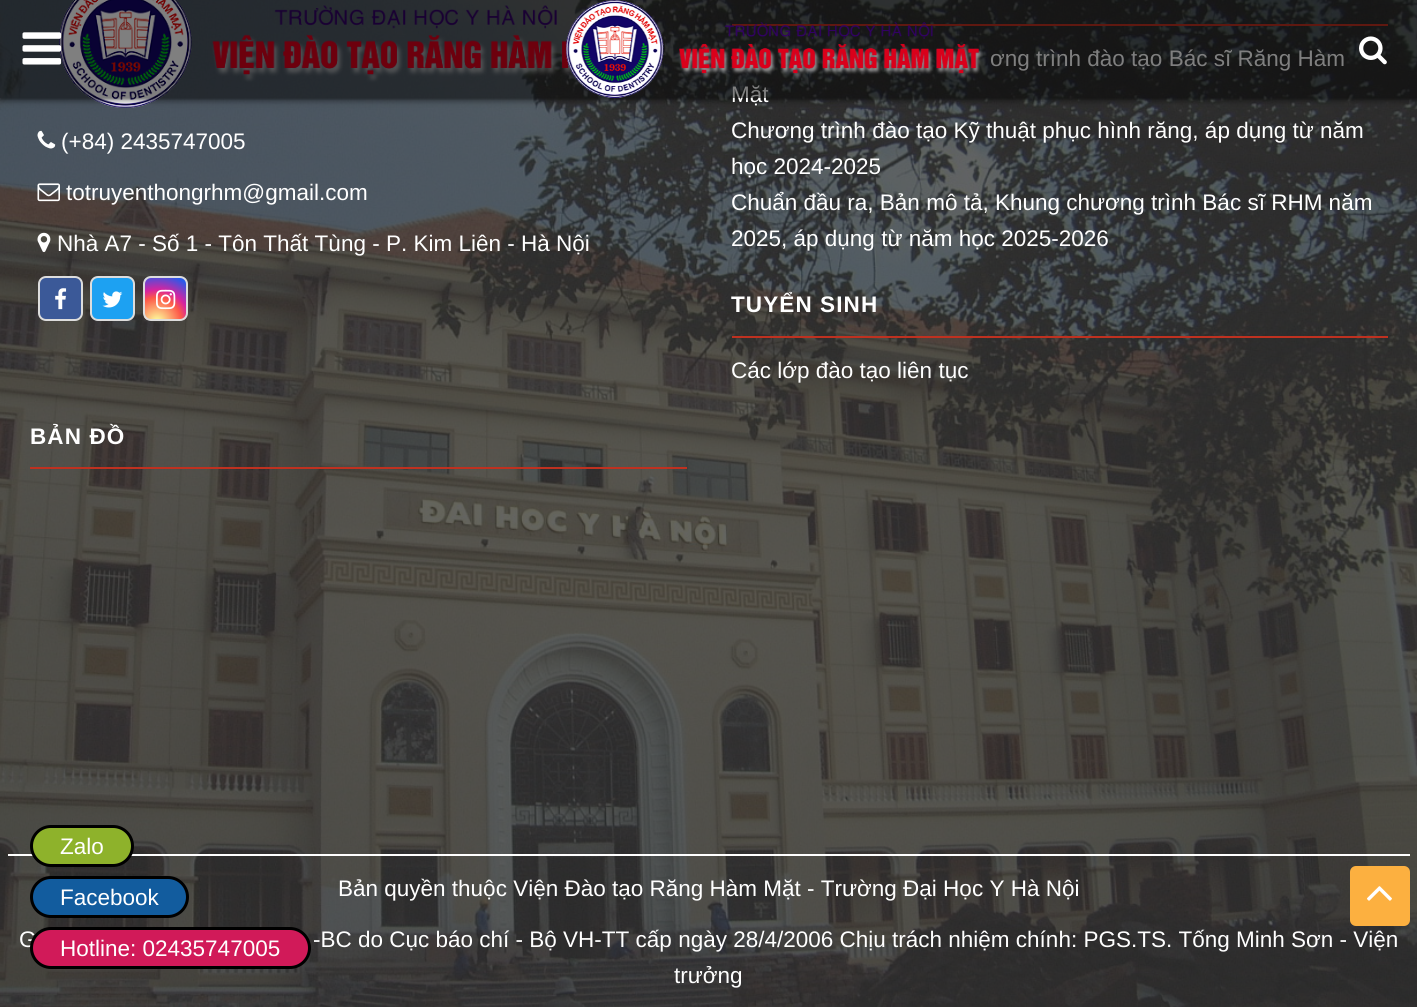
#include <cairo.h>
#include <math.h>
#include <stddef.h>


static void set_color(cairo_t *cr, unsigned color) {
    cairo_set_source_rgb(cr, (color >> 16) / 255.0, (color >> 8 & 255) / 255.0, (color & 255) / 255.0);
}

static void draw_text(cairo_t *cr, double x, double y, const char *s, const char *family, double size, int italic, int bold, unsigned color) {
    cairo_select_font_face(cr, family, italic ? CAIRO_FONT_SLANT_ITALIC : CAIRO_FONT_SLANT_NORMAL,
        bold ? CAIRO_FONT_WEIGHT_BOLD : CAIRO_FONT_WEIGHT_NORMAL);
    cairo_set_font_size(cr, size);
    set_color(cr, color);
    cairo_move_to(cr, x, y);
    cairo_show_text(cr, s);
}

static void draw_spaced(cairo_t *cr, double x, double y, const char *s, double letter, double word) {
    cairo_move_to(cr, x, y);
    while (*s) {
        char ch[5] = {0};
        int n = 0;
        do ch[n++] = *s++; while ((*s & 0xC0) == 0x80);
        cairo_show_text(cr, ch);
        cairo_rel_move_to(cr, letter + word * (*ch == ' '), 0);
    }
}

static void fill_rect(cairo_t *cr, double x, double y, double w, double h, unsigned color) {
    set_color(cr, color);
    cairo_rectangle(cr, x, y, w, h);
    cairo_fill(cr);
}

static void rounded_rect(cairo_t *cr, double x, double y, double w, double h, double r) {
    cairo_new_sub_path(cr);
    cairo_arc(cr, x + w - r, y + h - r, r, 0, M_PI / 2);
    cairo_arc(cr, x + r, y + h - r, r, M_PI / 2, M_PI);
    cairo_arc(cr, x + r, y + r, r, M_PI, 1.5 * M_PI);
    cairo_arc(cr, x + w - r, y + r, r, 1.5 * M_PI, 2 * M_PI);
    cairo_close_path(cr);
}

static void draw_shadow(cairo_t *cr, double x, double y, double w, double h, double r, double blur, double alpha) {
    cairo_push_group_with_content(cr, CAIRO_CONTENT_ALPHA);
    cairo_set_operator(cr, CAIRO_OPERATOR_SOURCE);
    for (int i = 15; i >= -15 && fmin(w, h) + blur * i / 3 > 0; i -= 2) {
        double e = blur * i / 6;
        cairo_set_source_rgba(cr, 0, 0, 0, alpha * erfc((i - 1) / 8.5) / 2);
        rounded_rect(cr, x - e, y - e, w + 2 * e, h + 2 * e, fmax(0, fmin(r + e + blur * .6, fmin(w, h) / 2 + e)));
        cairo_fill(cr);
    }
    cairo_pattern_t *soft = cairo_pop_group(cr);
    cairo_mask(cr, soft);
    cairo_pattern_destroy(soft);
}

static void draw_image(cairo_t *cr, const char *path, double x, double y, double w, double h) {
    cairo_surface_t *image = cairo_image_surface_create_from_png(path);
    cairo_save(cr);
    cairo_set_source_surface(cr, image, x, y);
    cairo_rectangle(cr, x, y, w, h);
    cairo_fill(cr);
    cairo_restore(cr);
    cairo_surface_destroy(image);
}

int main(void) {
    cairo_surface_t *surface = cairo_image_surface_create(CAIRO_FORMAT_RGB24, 1417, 1007);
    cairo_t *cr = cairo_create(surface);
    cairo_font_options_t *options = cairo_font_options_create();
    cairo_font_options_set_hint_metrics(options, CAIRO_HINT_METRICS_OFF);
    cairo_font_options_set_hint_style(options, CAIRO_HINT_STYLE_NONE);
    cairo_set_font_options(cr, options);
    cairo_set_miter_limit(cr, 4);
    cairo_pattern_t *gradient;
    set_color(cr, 0xFFFFFF);
    cairo_paint(cr);
    draw_image(cr, "assets/img4.png", 0, 0, 1417, 1007);
    draw_image(cr, "assets/img5.png", 59, 0, 516, 108);
    fill_rect(cr, 732, 24, 656, 2, 0xBF3120);
    cairo_save(cr);
    cairo_set_fill_rule(cr, CAIRO_FILL_RULE_EVEN_ODD);
    cairo_new_path(cr);
    cairo_move_to(cr, 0, 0);
    cairo_line_to(cr, 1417, 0);
    cairo_line_to(cr, 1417, 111);
    cairo_line_to(cr, 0, 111);
    cairo_close_path(cr);
    cairo_move_to(cr, 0, 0);
    cairo_line_to(cr, 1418, 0);
    cairo_line_to(cr, 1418, 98);
    cairo_line_to(cr, 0, 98);
    cairo_close_path(cr);
    cairo_clip(cr);
    set_color(cr, 0x000000);
    draw_shadow(cr, 0, 0, 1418, 98, 0, 4, 1);
    cairo_restore(cr);
    draw_text(cr, 990, 66, "ơng trình đào tạo Bác sĩ Răng Hàm", "Liberation Sans", 22.5, 0, 0, 0xFFFFFF);
    draw_text(cr, 731, 102, "Mặt", "Liberation Sans", 22.5, 0, 0, 0xFFFFFF);
    cairo_set_source_rgba(cr, 0, 0, 0, 0.5);
    cairo_rectangle(cr, 0, 0, 1417, 98);
    cairo_fill(cr);
    draw_image(cr, "assets/img1.png", 22, 32, 40, 33);
    draw_image(cr, "assets/img2.png", 565, 0, 418, 98);
    draw_image(cr, "assets/img3.png", 1359, 36, 28, 29);
    draw_image(cr, "assets/img6.png", 37, 130, 19, 19);
    draw_text(cr, 61, 149, "(+84) 2435747005", "Liberation Sans", 22.5, 0, 0, 0xFFFFFF);
    draw_image(cr, "assets/img7.png", 37, 183, 23, 19);
    draw_text(cr, 66, 200, "totruyenthongrhm@gmail.com", "Liberation Sans", 22.5, 0, 0, 0xFFFFFF);
    draw_image(cr, "assets/img8.png", 37, 232, 14, 21);
    draw_text(cr, 57, 251, "Nhà A7 - Số 1 - Tôn Thất Tùng - P. Kim Liên - Hà Nội", "Liberation Sans", 22.5, 0, 0, 0xFFFFFF);
    set_color(cr, 0x3B5998);
    rounded_rect(cr, 39, 277, 43, 43, 7);
    cairo_fill_preserve(cr);
    set_color(cr, 0xDDDDDD);
    cairo_stroke(cr);
    draw_image(cr, "assets/img9.png", 55, 288, 12, 22);
    set_color(cr, 0x1DA1F2);
    rounded_rect(cr, 91, 277, 43, 43, 7);
    cairo_fill_preserve(cr);
    set_color(cr, 0xDDDDDD);
    cairo_stroke(cr);
    draw_image(cr, "assets/img10.png", 102, 291, 21, 17);
    cairo_save(cr);
    rounded_rect(cr, 143, 276, 45, 45, 8);
    cairo_clip(cr);
    gradient = cairo_pattern_create_radial(157, 322, 0, 157, 322, 54);
    cairo_pattern_add_color_stop_rgba(gradient, 0, 0.992, 0.957, 0.592, 1);
    cairo_pattern_add_color_stop_rgba(gradient, 0.05, 0.992, 0.957, 0.592, 1);
    cairo_pattern_add_color_stop_rgba(gradient, 0.45, 0.992, 0.349, 0.286, 1);
    cairo_pattern_add_color_stop_rgba(gradient, 0.6, 0.839, 0.141, 0.624, 1);
    cairo_pattern_add_color_stop_rgba(gradient, 0.9, 0.157, 0.353, 0.922, 1);
    cairo_set_source(cr, gradient);
    cairo_pattern_destroy(gradient);
    cairo_rectangle(cr, 144, 278, 42, 42);
    cairo_fill(cr);
    cairo_restore(cr);
    rounded_rect(cr, 144, 277, 43, 43, 7);
    cairo_stroke(cr);
    draw_image(cr, "assets/img11.png", 156, 289, 20, 21);
    draw_text(cr, 731, 138, "Chương trình đào tạo Kỹ thuật phục hình răng, áp dụng từ năm", "Liberation Sans", 22.5, 0, 0, 0xFFFFFF);
    draw_text(cr, 731, 174, "học 2024-2025", "Liberation Sans", 22.5, 0, 0, 0xFFFFFF);
    draw_text(cr, 731, 210, "Chuẩn đầu ra, Bản mô tả, Khung chương trình Bác sĩ RHM năm", "Liberation Sans", 22.5, 0, 0, 0xFFFFFF);
    draw_text(cr, 731, 246, "2025, áp dụng từ năm học 2025-2026", "Liberation Sans", 22.5, 0, 0, 0xFFFFFF);
    cairo_select_font_face(cr, "Liberation Sans", CAIRO_FONT_SLANT_NORMAL, CAIRO_FONT_WEIGHT_BOLD);
    draw_spaced(cr, 731, 312, "TUYỂN SINH", 1.1, 0);
    fill_rect(cr, 732, 336, 656, 2, 0xBF3120);
    draw_text(cr, 731, 378, "Các lớp đào tạo liên tục", "Liberation Sans", 22.5, 0, 0, 0xFFFFFF);
    cairo_select_font_face(cr, "Liberation Sans", CAIRO_FONT_SLANT_NORMAL, CAIRO_FONT_WEIGHT_BOLD);
    draw_spaced(cr, 30, 444, "BẢN ĐỒ", 1.1, 0);
    fill_rect(cr, 30, 467, 657, 2, 0xBF3120);
    fill_rect(cr, 8, 854, 1402, 2, 0xFFFFFF);
    draw_text(cr, 338, 896, "Bản quyền thuộc Viện Đào tạo Răng Hàm Mặt - Trường Đại Học Y Hà Nội", "Liberation Sans", 22.5, 0, 0, 0xFFFFFF);
    draw_text(cr, 19, 947, "G", "Liberation Sans", 22.5, 0, 0, 0xFFFFFF);
    draw_text(cr, 313, 947, "-BC do Cục báo chí - Bộ VH-TT cấp ngày 28/4/2006 Chịu trách nhiệm chính: PGS.TS. Tống Minh Sơn - Viện", "Liberation Sans", 22.5, 0, 0, 0xFFFFFF);
    draw_text(cr, 674, 983, "trưởng", "Liberation Sans", 22.5, 0, 0, 0xFFFFFF);
    set_color(cr, 0x8EB22B);
    rounded_rect(cr, 31.5, 826.5, 101, 39, 19.5);
    cairo_fill_preserve(cr);
    set_color(cr, 0x000000);
    cairo_set_line_width(cr, 3);
    cairo_stroke(cr);
    draw_text(cr, 60, 854, "Zalo", "Liberation Sans", 22.5, 0, 0, 0xFFFFFF);
    set_color(cr, 0x125C9E);
    rounded_rect(cr, 31.5, 877.5, 156, 39, 19.5);
    cairo_fill_preserve(cr);
    set_color(cr, 0x000000);
    cairo_stroke(cr);
    draw_text(cr, 60, 905, "Facebook", "Liberation Sans", 22.5, 0, 0, 0xFFFFFF);
    set_color(cr, 0xD11A59);
    rounded_rect(cr, 31.5, 928.5, 278, 39, 19.5);
    cairo_fill_preserve(cr);
    set_color(cr, 0x000000);
    cairo_stroke(cr);
    draw_text(cr, 60, 956, "Hotline: 02435747005", "Liberation Sans", 22.5, 0, 0, 0xFFFFFF);
    set_color(cr, 0xFCB040);
    rounded_rect(cr, 1350, 866, 60, 60, 6);
    cairo_fill(cr);
    draw_image(cr, "assets/img12.png", 1367, 886, 25, 15);
    cairo_surface_write_to_png(surface, "output.png");
    cairo_font_options_destroy(options);
    cairo_destroy(cr);
    cairo_surface_destroy(surface);
    return 0;
}
